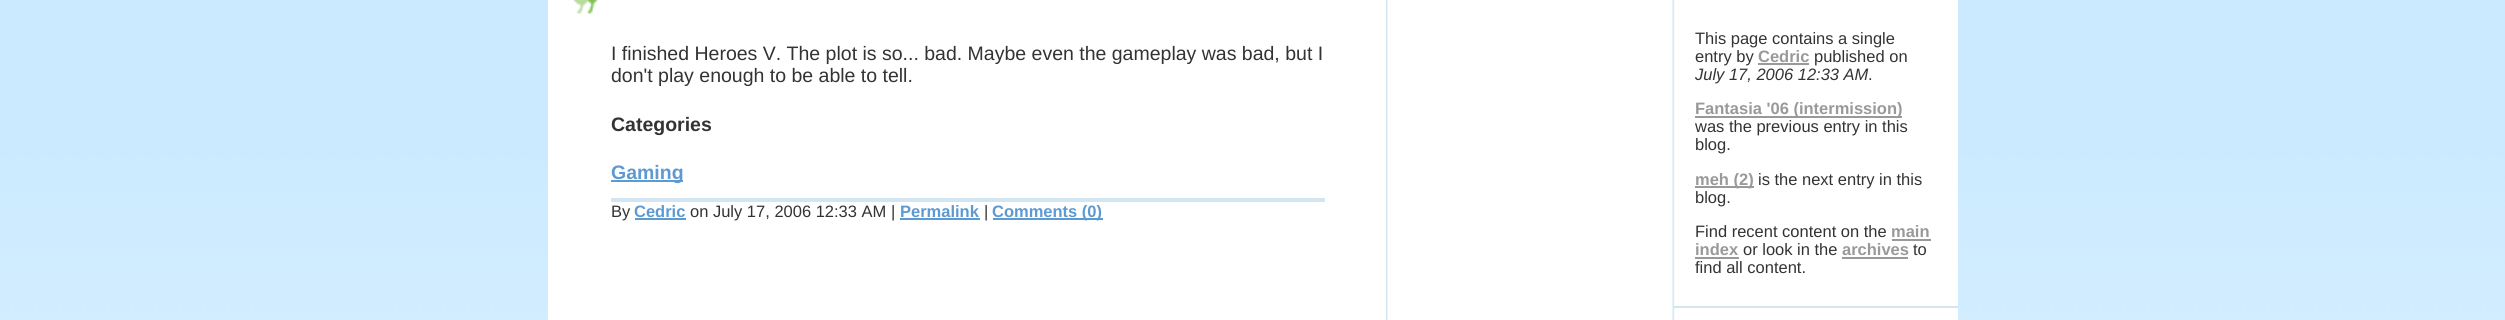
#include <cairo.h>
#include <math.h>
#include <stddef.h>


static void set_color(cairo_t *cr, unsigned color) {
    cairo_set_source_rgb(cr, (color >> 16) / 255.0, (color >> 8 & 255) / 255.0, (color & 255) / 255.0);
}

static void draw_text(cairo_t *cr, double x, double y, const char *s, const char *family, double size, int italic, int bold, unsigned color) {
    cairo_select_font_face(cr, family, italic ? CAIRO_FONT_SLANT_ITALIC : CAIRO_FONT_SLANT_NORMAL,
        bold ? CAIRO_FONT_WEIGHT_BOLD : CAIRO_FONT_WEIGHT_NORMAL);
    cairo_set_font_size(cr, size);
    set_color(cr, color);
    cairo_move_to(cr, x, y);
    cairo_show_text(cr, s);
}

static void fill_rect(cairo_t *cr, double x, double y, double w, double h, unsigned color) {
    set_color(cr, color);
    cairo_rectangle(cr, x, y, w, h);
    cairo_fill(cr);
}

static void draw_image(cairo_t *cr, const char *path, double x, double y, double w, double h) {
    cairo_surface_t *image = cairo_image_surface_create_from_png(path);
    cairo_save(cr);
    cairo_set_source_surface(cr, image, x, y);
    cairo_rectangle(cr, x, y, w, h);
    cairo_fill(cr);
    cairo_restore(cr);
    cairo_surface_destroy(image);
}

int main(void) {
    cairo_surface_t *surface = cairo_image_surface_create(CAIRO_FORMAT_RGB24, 2505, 320);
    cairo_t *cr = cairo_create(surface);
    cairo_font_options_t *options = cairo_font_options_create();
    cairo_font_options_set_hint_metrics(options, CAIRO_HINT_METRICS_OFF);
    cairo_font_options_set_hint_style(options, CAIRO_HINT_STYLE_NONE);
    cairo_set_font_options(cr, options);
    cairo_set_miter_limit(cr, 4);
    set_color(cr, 0xFFFFFF);
    cairo_paint(cr);
    draw_image(cr, "assets/img1.png", 0, 0, 2505, 320);
    fill_rect(cr, 548, 0, 1410, 320, 0xFFFFFF);
    draw_image(cr, "assets/img2.png", 1386, 0, 289, 320);
    draw_image(cr, "assets/img3.png", 572, 0, 27, 14);
    draw_text(cr, 611, 60, "I finished Heroes V. The plot is so... bad. Maybe even the gameplay was bad, but I", "Liberation Sans", 19.5, 0, 0, 0x333333);
    draw_text(cr, 611, 82, "don't play enough to be able to tell.", "Liberation Sans", 19.5, 0, 0, 0x333333);
    draw_text(cr, 611, 131, "Categories", "Liberation Sans", 19.5, 0, 1, 0x333333);
    fill_rect(cr, 611, 180, 72, 2, 0x5E9AD2);
    draw_text(cr, 611, 179, "Gaming", "Liberation Sans", 19.5, 0, 1, 0x5E9AD2);
    fill_rect(cr, 611, 198, 714, 4, 0xD4E5F2);
    draw_text(cr, 611, 217, "By", "Liberation Sans", 16.5, 0, 0, 0x333333);
    draw_text(cr, 634, 217, "Cedric", "Liberation Sans", 16.5, 0, 1, 0x5E9AD2);
    fill_rect(cr, 635, 218, 51, 2, 0x5E9AD2);
    draw_text(cr, 690, 217, "on July 17, 2006 12:33 AM |", "Liberation Sans", 16.5, 0, 0, 0x333333);
    draw_text(cr, 900, 217, "Permalink", "Liberation Sans", 16.5, 0, 1, 0x5E9AD2);
    fill_rect(cr, 900, 218, 80, 2, 0x5E9AD2);
    draw_text(cr, 984, 217, "|", "Liberation Sans", 16.5, 0, 0, 0x333333);
    fill_rect(cr, 993, 218, 110, 2, 0x5E9AD2);
    draw_text(cr, 992, 217, "Comments (0)", "Liberation Sans", 16.5, 0, 1, 0x5E9AD2);
    fill_rect(cr, 1673, 306, 285, 2, 0xD4E5F2);
    draw_text(cr, 1695, 44, "This page contains a single", "Liberation Sans", 16.5, 0, 0, 0x333333);
    draw_text(cr, 1695, 62, "entry by", "Liberation Sans", 16.5, 0, 0, 0x333333);
    draw_text(cr, 1758, 62, "Cedric", "Liberation Sans", 16.5, 0, 1, 0x999999);
    fill_rect(cr, 1758, 63, 51, 2, 0x999999);
    draw_text(cr, 1814, 62, "published on", "Liberation Sans", 16.5, 0, 0, 0x333333);
    draw_text(cr, 1695, 80, "July 17, 2006 12:33 AM", "Liberation Sans", 16.5, 1, 0, 0x333333);
    draw_text(cr, 1868, 80, ".", "Liberation Sans", 16.5, 0, 0, 0x333333);
    fill_rect(cr, 1695, 116, 207, 2, 0x999999);
    draw_text(cr, 1695, 114, "Fantasia '06 (intermission)", "Liberation Sans", 16.5, 0, 1, 0x999999);
    draw_text(cr, 1695, 132, "was the previous entry in this", "Liberation Sans", 16.5, 0, 0, 0x333333);
    draw_text(cr, 1695, 150, "blog.", "Liberation Sans", 16.5, 0, 0, 0x333333);
    fill_rect(cr, 1695, 186, 59, 2, 0x999999);
    draw_text(cr, 1695, 185, "meh (2)", "Liberation Sans", 16.5, 0, 1, 0x999999);
    draw_text(cr, 1758, 185, "is the next entry in this", "Liberation Sans", 16.5, 0, 0, 0x333333);
    draw_text(cr, 1695, 203, "blog.", "Liberation Sans", 16.5, 0, 0, 0x333333);
    draw_text(cr, 1695, 237, "Find recent content on the", "Liberation Sans", 16.5, 0, 0, 0x333333);
    draw_text(cr, 1891, 237, "main", "Liberation Sans", 16.5, 0, 1, 0x999999);
    fill_rect(cr, 1892, 239, 39, 2, 0x999999);
    draw_text(cr, 1695, 255, "index", "Liberation Sans", 16.5, 0, 1, 0x999999);
    fill_rect(cr, 1695, 257, 44, 2, 0x999999);
    draw_text(cr, 1743, 255, "or look in the", "Liberation Sans", 16.5, 0, 0, 0x333333);
    draw_text(cr, 1842, 255, "archives", "Liberation Sans", 16.5, 0, 1, 0x999999);
    fill_rect(cr, 1842, 257, 66, 2, 0x999999);
    draw_text(cr, 1913, 255, "to", "Liberation Sans", 16.5, 0, 0, 0x333333);
    draw_text(cr, 1695, 273, "find all content.", "Liberation Sans", 16.5, 0, 0, 0x333333);
    cairo_surface_write_to_png(surface, "output.png");
    cairo_font_options_destroy(options);
    cairo_destroy(cr);
    cairo_surface_destroy(surface);
    return 0;
}
